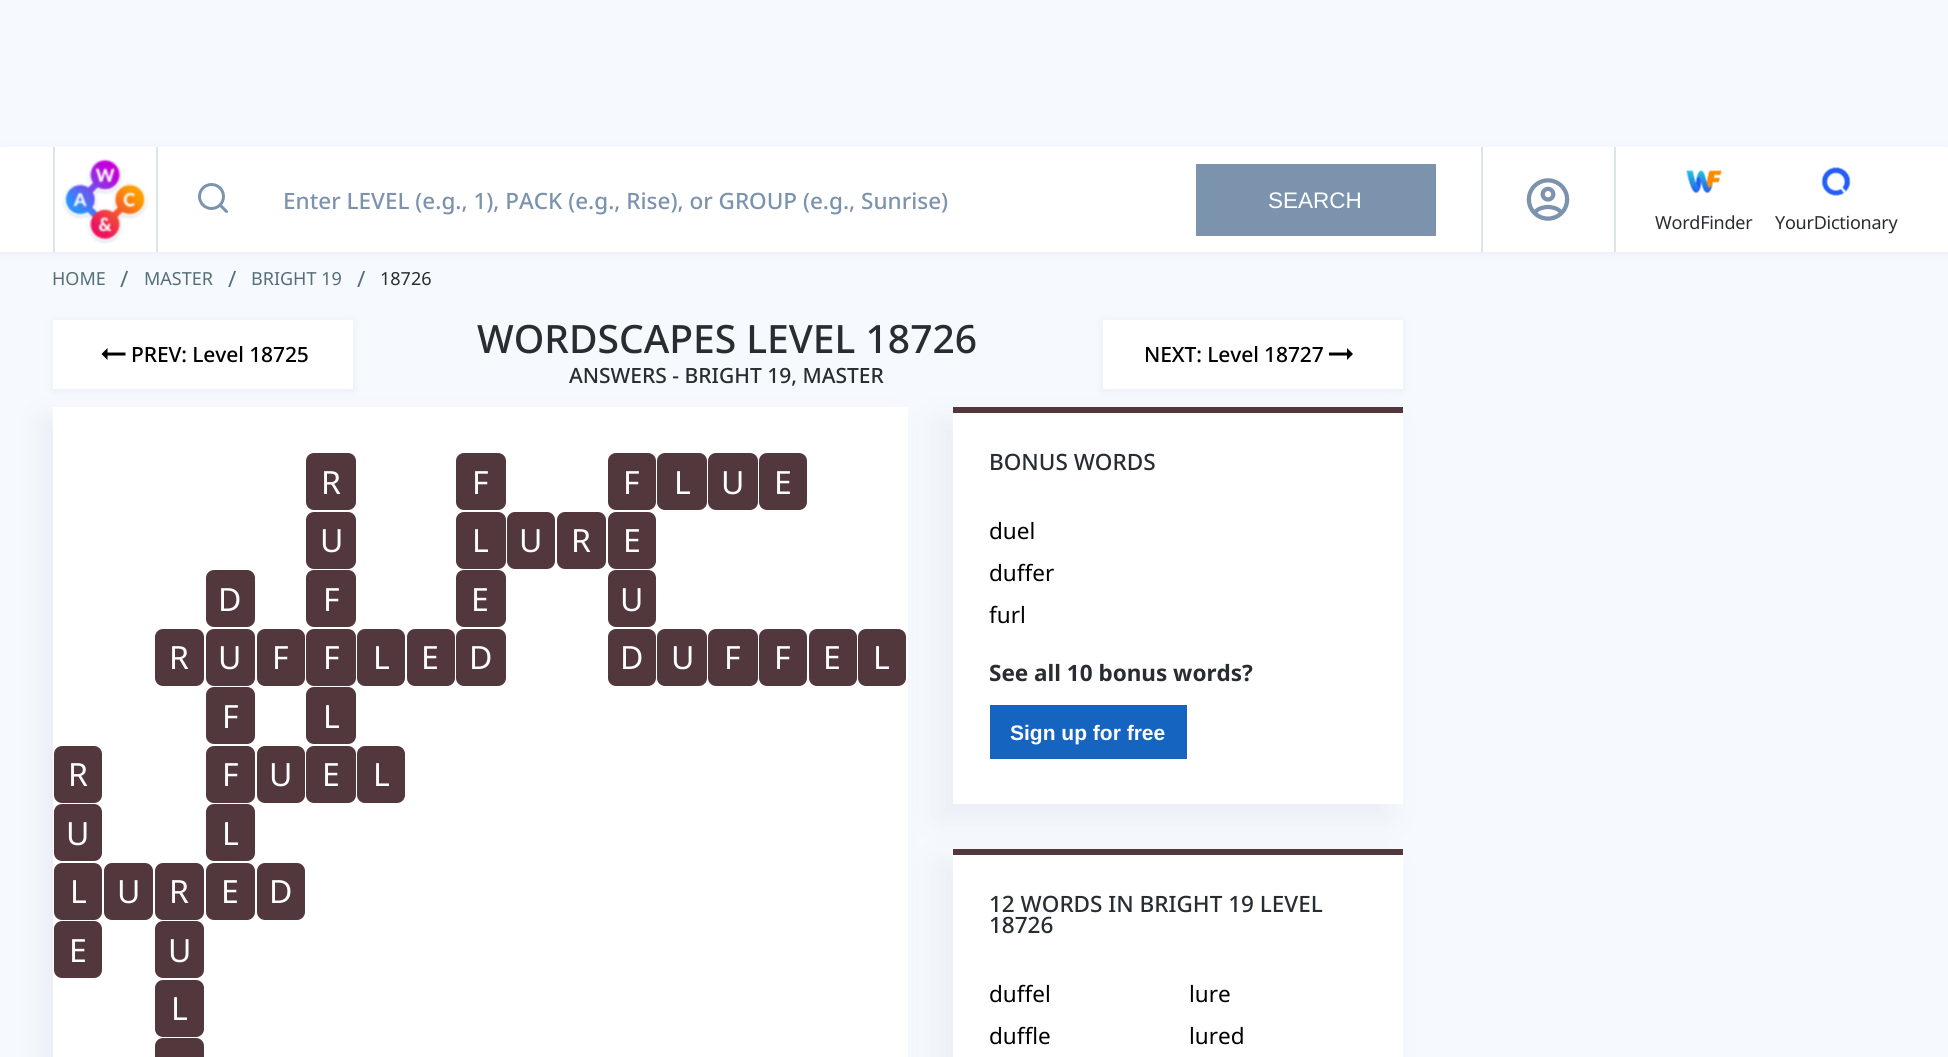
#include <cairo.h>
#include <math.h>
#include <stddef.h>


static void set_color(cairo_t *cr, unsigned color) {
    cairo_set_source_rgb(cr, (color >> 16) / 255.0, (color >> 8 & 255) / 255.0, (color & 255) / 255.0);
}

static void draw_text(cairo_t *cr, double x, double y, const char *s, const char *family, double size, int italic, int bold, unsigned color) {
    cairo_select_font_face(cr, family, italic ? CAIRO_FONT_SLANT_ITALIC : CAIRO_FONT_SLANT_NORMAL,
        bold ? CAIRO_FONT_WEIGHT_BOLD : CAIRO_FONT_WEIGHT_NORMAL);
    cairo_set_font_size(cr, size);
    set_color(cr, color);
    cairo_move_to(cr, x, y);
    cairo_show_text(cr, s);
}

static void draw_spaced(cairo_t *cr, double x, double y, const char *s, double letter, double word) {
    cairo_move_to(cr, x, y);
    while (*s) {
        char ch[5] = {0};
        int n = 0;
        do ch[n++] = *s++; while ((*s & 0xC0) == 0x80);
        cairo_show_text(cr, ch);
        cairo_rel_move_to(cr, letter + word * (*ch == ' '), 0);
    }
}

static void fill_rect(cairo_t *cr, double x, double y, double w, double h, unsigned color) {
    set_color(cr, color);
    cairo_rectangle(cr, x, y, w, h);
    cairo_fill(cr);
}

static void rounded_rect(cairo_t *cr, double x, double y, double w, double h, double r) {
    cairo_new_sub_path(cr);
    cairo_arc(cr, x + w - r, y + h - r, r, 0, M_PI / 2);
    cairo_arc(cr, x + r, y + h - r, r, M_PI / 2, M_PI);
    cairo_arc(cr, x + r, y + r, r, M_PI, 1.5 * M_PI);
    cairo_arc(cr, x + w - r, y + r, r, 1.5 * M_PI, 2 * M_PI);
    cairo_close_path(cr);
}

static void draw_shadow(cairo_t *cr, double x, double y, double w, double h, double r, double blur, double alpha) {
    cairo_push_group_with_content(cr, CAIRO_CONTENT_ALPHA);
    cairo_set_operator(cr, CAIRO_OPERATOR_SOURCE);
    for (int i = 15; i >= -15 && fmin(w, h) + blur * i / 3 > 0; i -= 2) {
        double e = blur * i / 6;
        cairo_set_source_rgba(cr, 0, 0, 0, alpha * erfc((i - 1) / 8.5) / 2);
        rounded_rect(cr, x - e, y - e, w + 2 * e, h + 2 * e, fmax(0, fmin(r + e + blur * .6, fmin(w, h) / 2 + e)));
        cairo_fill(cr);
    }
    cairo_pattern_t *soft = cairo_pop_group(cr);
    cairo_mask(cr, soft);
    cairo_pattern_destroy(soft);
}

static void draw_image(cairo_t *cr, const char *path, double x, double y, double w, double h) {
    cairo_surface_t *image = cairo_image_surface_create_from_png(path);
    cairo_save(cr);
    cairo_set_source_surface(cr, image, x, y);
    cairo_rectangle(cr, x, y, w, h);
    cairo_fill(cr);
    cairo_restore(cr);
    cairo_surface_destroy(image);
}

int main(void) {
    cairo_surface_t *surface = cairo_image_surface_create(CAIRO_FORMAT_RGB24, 1948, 1057);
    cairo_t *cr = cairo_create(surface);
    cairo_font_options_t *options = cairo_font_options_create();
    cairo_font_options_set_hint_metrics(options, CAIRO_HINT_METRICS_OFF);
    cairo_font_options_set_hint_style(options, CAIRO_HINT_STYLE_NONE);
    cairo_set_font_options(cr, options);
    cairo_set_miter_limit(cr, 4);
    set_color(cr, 0xF6F9FD);
    cairo_paint(cr);
    set_color(cr, 0x7C93AD);
    draw_shadow(cr, 0, 149, 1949, 105, 0, 4, 0.1);
    fill_rect(cr, 3, 146, 1943, 1, 0xF6F9FD);
    fill_rect(cr, 0, 147, 1948, 105, 0xFFFFFF);
    fill_rect(cr, 156, 147, 2, 105, 0xDEE5E9);
    fill_rect(cr, 53, 147, 2, 105, 0xDEE5E9);
    draw_image(cr, "assets/img1.png", 62, 158, 86, 86);
    cairo_arc(cr, 211.5, 196.5, 12, 0, 2 * M_PI);
    set_color(cr, 0x7C93AD);
    cairo_set_line_width(cr, 3);
    cairo_stroke(cr);
    cairo_new_path(cr);
    cairo_move_to(cr, 226.5, 211.5);
    cairo_line_to(cr, 220.5, 205.5);
    cairo_set_line_cap(cr, CAIRO_LINE_CAP_ROUND);
    cairo_set_line_join(cr, CAIRO_LINE_JOIN_ROUND);
    cairo_stroke(cr);
    draw_text(cr, 283, 209, "Enter LEVEL (e.g., 1), PACK (e.g., Rise), or GROUP (e.g., Sunrise)", "Noto Sans Medium", 22.5, 0, 0, 0x7C93AD);
    fill_rect(cr, 1196, 164, 240, 72, 0x7C93AD);
    draw_text(cr, 1268, 208, "SEARCH", "Liberation Sans", 22.5, 0, 0, 0xFFFFFF);
    fill_rect(cr, 1481, 147, 2, 105, 0xDEE5E9);
    draw_image(cr, "assets/img2.png", 1526, 178, 44, 43);
    fill_rect(cr, 1614, 147, 2, 105, 0xDEE5E9);
    draw_image(cr, "assets/img3.png", 1686, 170, 36, 24);
    cairo_select_font_face(cr, "Noto Sans", CAIRO_FONT_SLANT_NORMAL, CAIRO_FONT_WEIGHT_NORMAL);
    cairo_set_font_size(cr, 18);
    set_color(cr, 0x282D32);
    draw_spaced(cr, 1655, 229, "WordFinder", -0.25, 0);
    draw_image(cr, "assets/img4.png", 1821, 167, 30, 29);
    draw_spaced(cr, 1775, 229, "YourDictionary", -0.25, 0);
    draw_text(cr, 52, 285, "HOME", "Noto Sans", 18, 0, 0, 0x546E7A);
    draw_text(cr, 120, 287, "/", "Noto Sans", 22.5, 0, 0, 0x546E7A);
    draw_text(cr, 144, 285, "MASTER", "Noto Sans", 18, 0, 0, 0x546E7A);
    draw_text(cr, 228, 287, "/", "Noto Sans", 22.5, 0, 0, 0x546E7A);
    draw_text(cr, 251, 285, "BRIGHT 19", "Noto Sans", 18, 0, 0, 0x546E7A);
    draw_text(cr, 357, 287, "/", "Noto Sans", 22.5, 0, 0, 0x546E7A);
    draw_text(cr, 380, 285, "18726", "Noto Sans", 18, 0, 0, 0x282D32);
    set_color(cr, 0x7C93AD);
    draw_shadow(cr, 53, 321, 300, 69, 0, 4.5, 0.1);
    fill_rect(cr, 53, 320, 300, 69, 0xFFFFFF);
    set_color(cr, 0x000000);
    cairo_new_path(cr);
    cairo_move_to(cr, 107.5, 355.5);
    cairo_line_to(cr, 125.5, 355.5);
    cairo_line_to(cr, 125.5, 352.5);
    cairo_line_to(cr, 107.5, 352.5);
    cairo_line_to(cr, 107.5, 348);
    cairo_line_to(cr, 101.5, 354);
    cairo_line_to(cr, 107.5, 360);
    cairo_close_path(cr);
    cairo_fill(cr);
    cairo_select_font_face(cr, "Noto Sans Medium", CAIRO_FONT_SLANT_NORMAL, CAIRO_FONT_WEIGHT_NORMAL);
    cairo_set_font_size(cr, 21);
    draw_spaced(cr, 131, 362, "PREV: Level 18725", -0.1, 0);
    draw_text(cr, 477, 353, "WORDSCAPES LEVEL 18726", "Noto Sans Medium", 39, 0, 0, 0x282D32);
    draw_text(cr, 569, 383, "ANSWERS - BRIGHT 19, MASTER", "Noto Sans Medium", 21, 0, 0, 0x282D32);
    set_color(cr, 0x7C93AD);
    draw_shadow(cr, 1103, 321, 300, 69, 0, 4.5, 0.1);
    fill_rect(cr, 1103, 320, 300, 69, 0xFFFFFF);
    set_color(cr, 0x000000);
    draw_spaced(cr, 1144, 362, "NEXT: Level 18727", -0.1, 0);
    cairo_new_path(cr);
    cairo_move_to(cr, 1347, 352.5);
    cairo_line_to(cr, 1329, 352.5);
    cairo_line_to(cr, 1329, 355.5);
    cairo_line_to(cr, 1347, 355.5);
    cairo_line_to(cr, 1347, 360);
    cairo_line_to(cr, 1353, 354);
    cairo_line_to(cr, 1347, 348);
    cairo_close_path(cr);
    cairo_fill(cr);
    set_color(cr, 0x7C93AD);
    draw_shadow(cr, 41, 419, 855, 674, 0, 12, 0.1);
    fill_rect(cr, 53, 407, 855, 650, 0xFFFFFF);
    set_color(cr, 0x52373C);
    rounded_rect(cr, 306, 453, 50, 57, 8);
    cairo_fill(cr);
    draw_text(cr, 321, 494, "R", "Noto Sans", 32, 0, 0, 0xFFFFFF);
    set_color(cr, 0x52373C);
    rounded_rect(cr, 456, 453, 50, 57, 8);
    cairo_fill(cr);
    draw_text(cr, 472, 494, "F", "Noto Sans", 32, 0, 0, 0xFFFFFF);
    set_color(cr, 0x52373C);
    rounded_rect(cr, 608, 453, 48, 57, 8);
    cairo_fill(cr);
    draw_text(cr, 623, 494, "F", "Noto Sans", 32, 0, 0, 0xFFFFFF);
    set_color(cr, 0x52373C);
    rounded_rect(cr, 657, 453, 50, 57, 8);
    cairo_fill(cr);
    draw_text(cr, 674, 494, "L", "Noto Sans", 32, 0, 0, 0xFFFFFF);
    set_color(cr, 0x52373C);
    rounded_rect(cr, 708, 453, 50, 57, 8);
    cairo_fill(cr);
    draw_text(cr, 721, 494, "U", "Noto Sans", 32, 0, 0, 0xFFFFFF);
    set_color(cr, 0x52373C);
    rounded_rect(cr, 759, 453, 48, 57, 8);
    cairo_fill(cr);
    draw_text(cr, 774, 494, "E", "Noto Sans", 32, 0, 0, 0xFFFFFF);
    set_color(cr, 0x52373C);
    rounded_rect(cr, 306, 512, 50, 57, 8);
    cairo_fill(cr);
    draw_text(cr, 320, 552, "U", "Noto Sans", 32, 0, 0, 0xFFFFFF);
    set_color(cr, 0x52373C);
    rounded_rect(cr, 456, 512, 50, 57, 8);
    cairo_fill(cr);
    draw_text(cr, 472, 552, "L", "Noto Sans", 32, 0, 0, 0xFFFFFF);
    set_color(cr, 0x52373C);
    rounded_rect(cr, 507, 512, 48, 57, 8);
    cairo_fill(cr);
    draw_text(cr, 519, 552, "U", "Noto Sans", 32, 0, 0, 0xFFFFFF);
    set_color(cr, 0x52373C);
    rounded_rect(cr, 557, 512, 49, 57, 8);
    cairo_fill(cr);
    draw_text(cr, 571, 552, "R", "Noto Sans", 32, 0, 0, 0xFFFFFF);
    set_color(cr, 0x52373C);
    rounded_rect(cr, 608, 512, 48, 57, 8);
    cairo_fill(cr);
    draw_text(cr, 623, 552, "E", "Noto Sans", 32, 0, 0, 0xFFFFFF);
    set_color(cr, 0x52373C);
    rounded_rect(cr, 206, 570, 49, 57, 8);
    cairo_fill(cr);
    draw_text(cr, 218, 611, "D", "Noto Sans", 32, 0, 0, 0xFFFFFF);
    set_color(cr, 0x52373C);
    rounded_rect(cr, 306, 570, 50, 57, 8);
    cairo_fill(cr);
    draw_text(cr, 323, 611, "F", "Noto Sans", 32, 0, 0, 0xFFFFFF);
    set_color(cr, 0x52373C);
    rounded_rect(cr, 456, 570, 50, 57, 8);
    cairo_fill(cr);
    draw_text(cr, 471, 611, "E", "Noto Sans", 32, 0, 0, 0xFFFFFF);
    set_color(cr, 0x52373C);
    rounded_rect(cr, 608, 570, 48, 57, 8);
    cairo_fill(cr);
    draw_text(cr, 620, 611, "U", "Noto Sans", 32, 0, 0, 0xFFFFFF);
    set_color(cr, 0x52373C);
    rounded_rect(cr, 155, 629, 49, 57, 8);
    cairo_fill(cr);
    draw_text(cr, 169, 669, "R", "Noto Sans", 32, 0, 0, 0xFFFFFF);
    set_color(cr, 0x52373C);
    rounded_rect(cr, 206, 629, 49, 57, 8);
    cairo_fill(cr);
    draw_text(cr, 218, 669, "U", "Noto Sans", 32, 0, 0, 0xFFFFFF);
    set_color(cr, 0x52373C);
    rounded_rect(cr, 257, 629, 48, 57, 8);
    cairo_fill(cr);
    draw_text(cr, 272, 669, "F", "Noto Sans", 32, 0, 0, 0xFFFFFF);
    set_color(cr, 0x52373C);
    rounded_rect(cr, 306, 629, 50, 57, 8);
    cairo_fill(cr);
    draw_text(cr, 323, 669, "F", "Noto Sans", 32, 0, 0, 0xFFFFFF);
    set_color(cr, 0x52373C);
    rounded_rect(cr, 357, 629, 48, 57, 8);
    cairo_fill(cr);
    draw_text(cr, 373, 669, "L", "Noto Sans", 32, 0, 0, 0xFFFFFF);
    set_color(cr, 0x52373C);
    rounded_rect(cr, 407, 629, 48, 57, 8);
    cairo_fill(cr);
    draw_text(cr, 421, 669, "E", "Noto Sans", 32, 0, 0, 0xFFFFFF);
    set_color(cr, 0x52373C);
    rounded_rect(cr, 456, 629, 50, 57, 8);
    cairo_fill(cr);
    draw_text(cr, 469, 669, "D", "Noto Sans", 32, 0, 0, 0xFFFFFF);
    set_color(cr, 0x52373C);
    rounded_rect(cr, 608, 629, 48, 57, 8);
    cairo_fill(cr);
    draw_text(cr, 620, 669, "D", "Noto Sans", 32, 0, 0, 0xFFFFFF);
    set_color(cr, 0x52373C);
    rounded_rect(cr, 657, 629, 50, 57, 8);
    cairo_fill(cr);
    draw_text(cr, 671, 669, "U", "Noto Sans", 32, 0, 0, 0xFFFFFF);
    set_color(cr, 0x52373C);
    rounded_rect(cr, 708, 629, 50, 57, 8);
    cairo_fill(cr);
    draw_text(cr, 724, 669, "F", "Noto Sans", 32, 0, 0, 0xFFFFFF);
    set_color(cr, 0x52373C);
    rounded_rect(cr, 759, 629, 48, 57, 8);
    cairo_fill(cr);
    draw_text(cr, 774, 669, "F", "Noto Sans", 32, 0, 0, 0xFFFFFF);
    set_color(cr, 0x52373C);
    rounded_rect(cr, 809, 629, 48, 57, 8);
    cairo_fill(cr);
    draw_text(cr, 823, 669, "E", "Noto Sans", 32, 0, 0, 0xFFFFFF);
    set_color(cr, 0x52373C);
    rounded_rect(cr, 858, 629, 48, 57, 8);
    cairo_fill(cr);
    draw_text(cr, 873, 669, "L", "Noto Sans", 32, 0, 0, 0xFFFFFF);
    set_color(cr, 0x52373C);
    rounded_rect(cr, 206, 687, 49, 57, 8);
    cairo_fill(cr);
    draw_text(cr, 222, 728, "F", "Noto Sans", 32, 0, 0, 0xFFFFFF);
    set_color(cr, 0x52373C);
    rounded_rect(cr, 306, 687, 50, 57, 8);
    cairo_fill(cr);
    draw_text(cr, 323, 728, "L", "Noto Sans", 32, 0, 0, 0xFFFFFF);
    set_color(cr, 0x52373C);
    rounded_rect(cr, 54, 746, 48, 57, 8);
    cairo_fill(cr);
    draw_text(cr, 68, 786, "R", "Noto Sans", 32, 0, 0, 0xFFFFFF);
    set_color(cr, 0x52373C);
    rounded_rect(cr, 206, 746, 49, 57, 8);
    cairo_fill(cr);
    draw_text(cr, 222, 786, "F", "Noto Sans", 32, 0, 0, 0xFFFFFF);
    set_color(cr, 0x52373C);
    rounded_rect(cr, 257, 746, 48, 57, 8);
    cairo_fill(cr);
    draw_text(cr, 269, 786, "U", "Noto Sans", 32, 0, 0, 0xFFFFFF);
    set_color(cr, 0x52373C);
    rounded_rect(cr, 306, 746, 50, 57, 8);
    cairo_fill(cr);
    draw_text(cr, 322, 786, "E", "Noto Sans", 32, 0, 0, 0xFFFFFF);
    set_color(cr, 0x52373C);
    rounded_rect(cr, 357, 746, 48, 57, 8);
    cairo_fill(cr);
    draw_text(cr, 373, 786, "L", "Noto Sans", 32, 0, 0, 0xFFFFFF);
    set_color(cr, 0x52373C);
    rounded_rect(cr, 54, 804, 48, 57, 8);
    cairo_fill(cr);
    draw_text(cr, 66, 845, "U", "Noto Sans", 32, 0, 0, 0xFFFFFF);
    set_color(cr, 0x52373C);
    rounded_rect(cr, 206, 804, 49, 57, 8);
    cairo_fill(cr);
    draw_text(cr, 222, 845, "L", "Noto Sans", 32, 0, 0, 0xFFFFFF);
    set_color(cr, 0x52373C);
    rounded_rect(cr, 54, 863, 48, 57, 8);
    cairo_fill(cr);
    draw_text(cr, 70, 903, "L", "Noto Sans", 32, 0, 0, 0xFFFFFF);
    set_color(cr, 0x52373C);
    rounded_rect(cr, 104, 863, 49, 57, 8);
    cairo_fill(cr);
    draw_text(cr, 117, 903, "U", "Noto Sans", 32, 0, 0, 0xFFFFFF);
    set_color(cr, 0x52373C);
    rounded_rect(cr, 155, 863, 49, 57, 8);
    cairo_fill(cr);
    draw_text(cr, 169, 903, "R", "Noto Sans", 32, 0, 0, 0xFFFFFF);
    set_color(cr, 0x52373C);
    rounded_rect(cr, 206, 863, 49, 57, 8);
    cairo_fill(cr);
    draw_text(cr, 221, 903, "E", "Noto Sans", 32, 0, 0, 0xFFFFFF);
    set_color(cr, 0x52373C);
    rounded_rect(cr, 257, 863, 48, 57, 8);
    cairo_fill(cr);
    draw_text(cr, 269, 903, "D", "Noto Sans", 32, 0, 0, 0xFFFFFF);
    set_color(cr, 0x52373C);
    rounded_rect(cr, 54, 921, 48, 57, 8);
    cairo_fill(cr);
    draw_text(cr, 69, 962, "E", "Noto Sans", 32, 0, 0, 0xFFFFFF);
    set_color(cr, 0x52373C);
    rounded_rect(cr, 155, 921, 49, 57, 8);
    cairo_fill(cr);
    draw_text(cr, 168, 962, "U", "Noto Sans", 32, 0, 0, 0xFFFFFF);
    set_color(cr, 0x52373C);
    rounded_rect(cr, 155, 980, 49, 57, 8);
    cairo_fill(cr);
    draw_text(cr, 171, 1020, "L", "Noto Sans", 32, 0, 0, 0xFFFFFF);
    set_color(cr, 0x52373C);
    rounded_rect(cr, 155, 1038, 49, 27, 8);
    cairo_fill(cr);
    set_color(cr, 0x7C93AD);
    draw_shadow(cr, 938, 422, 450, 397, 0, 15, 0.1);
    fill_rect(cr, 953, 413, 450, 391, 0xFFFFFF);
    fill_rect(cr, 953, 407, 450, 6, 0x52373C);
    draw_text(cr, 989, 470, "BONUS WORDS", "Noto Sans Medium", 22.5, 0, 0, 0x282D32);
    draw_text(cr, 989, 539, "duel", "Noto Sans", 22.5, 0, 0, 0x000000);
    draw_text(cr, 989, 581, "duffer", "Noto Sans", 22.5, 0, 0, 0x000000);
    draw_text(cr, 989, 623, "furl", "Noto Sans", 22.5, 0, 0, 0x000000);
    draw_text(cr, 989, 681, "See all 10 bonus words?", "Noto Sans", 22.5, 0, 1, 0x282D32);
    fill_rect(cr, 990, 705, 197, 54, 0x1565C0);
    draw_text(cr, 1010, 740, "Sign up for free", "Liberation Sans", 21, 0, 1, 0xFFFFFF);
    set_color(cr, 0x7C93AD);
    draw_shadow(cr, 938, 864, 450, 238, 0, 15, 0.1);
    fill_rect(cr, 953, 855, 450, 202, 0xFFFFFF);
    fill_rect(cr, 953, 849, 450, 6, 0x52373C);
    draw_text(cr, 989, 912, "12 WORDS IN BRIGHT 19 LEVEL", "Noto Sans Medium", 22.5, 0, 0, 0x282D32);
    draw_text(cr, 989, 933, "18726", "Noto Sans Medium", 22.5, 0, 0, 0x282D32);
    draw_text(cr, 989, 1002, "duffel", "Noto Sans", 22.5, 0, 0, 0x000000);
    draw_text(cr, 1189, 1002, "lure", "Noto Sans", 22.5, 0, 0, 0x000000);
    draw_text(cr, 989, 1044, "duffle", "Noto Sans", 22.5, 0, 0, 0x000000);
    draw_text(cr, 1189, 1044, "lured", "Noto Sans", 22.5, 0, 0, 0x000000);
    cairo_surface_write_to_png(surface, "output.png");
    cairo_font_options_destroy(options);
    cairo_destroy(cr);
    cairo_surface_destroy(surface);
    return 0;
}
